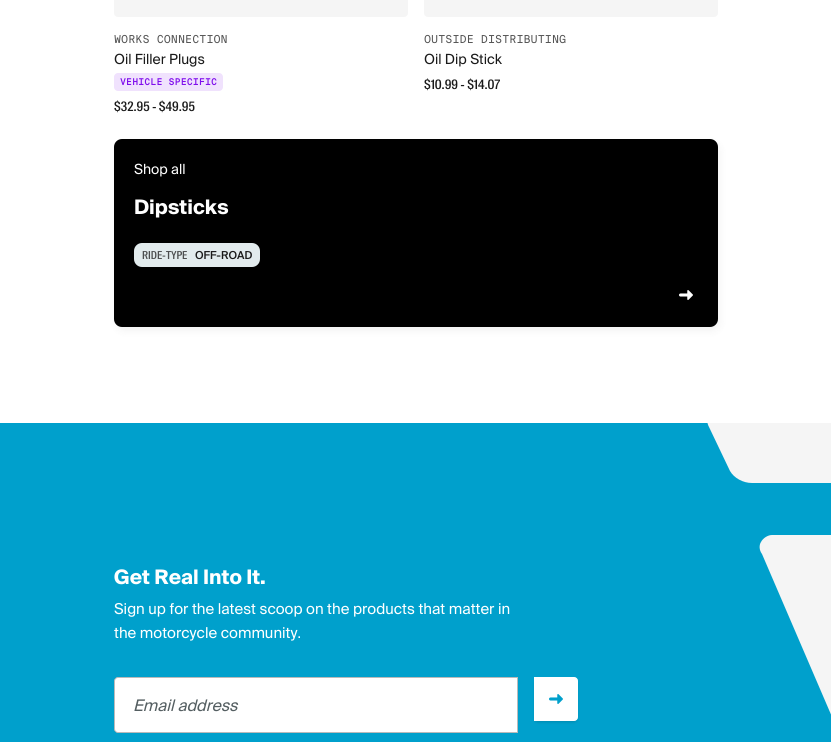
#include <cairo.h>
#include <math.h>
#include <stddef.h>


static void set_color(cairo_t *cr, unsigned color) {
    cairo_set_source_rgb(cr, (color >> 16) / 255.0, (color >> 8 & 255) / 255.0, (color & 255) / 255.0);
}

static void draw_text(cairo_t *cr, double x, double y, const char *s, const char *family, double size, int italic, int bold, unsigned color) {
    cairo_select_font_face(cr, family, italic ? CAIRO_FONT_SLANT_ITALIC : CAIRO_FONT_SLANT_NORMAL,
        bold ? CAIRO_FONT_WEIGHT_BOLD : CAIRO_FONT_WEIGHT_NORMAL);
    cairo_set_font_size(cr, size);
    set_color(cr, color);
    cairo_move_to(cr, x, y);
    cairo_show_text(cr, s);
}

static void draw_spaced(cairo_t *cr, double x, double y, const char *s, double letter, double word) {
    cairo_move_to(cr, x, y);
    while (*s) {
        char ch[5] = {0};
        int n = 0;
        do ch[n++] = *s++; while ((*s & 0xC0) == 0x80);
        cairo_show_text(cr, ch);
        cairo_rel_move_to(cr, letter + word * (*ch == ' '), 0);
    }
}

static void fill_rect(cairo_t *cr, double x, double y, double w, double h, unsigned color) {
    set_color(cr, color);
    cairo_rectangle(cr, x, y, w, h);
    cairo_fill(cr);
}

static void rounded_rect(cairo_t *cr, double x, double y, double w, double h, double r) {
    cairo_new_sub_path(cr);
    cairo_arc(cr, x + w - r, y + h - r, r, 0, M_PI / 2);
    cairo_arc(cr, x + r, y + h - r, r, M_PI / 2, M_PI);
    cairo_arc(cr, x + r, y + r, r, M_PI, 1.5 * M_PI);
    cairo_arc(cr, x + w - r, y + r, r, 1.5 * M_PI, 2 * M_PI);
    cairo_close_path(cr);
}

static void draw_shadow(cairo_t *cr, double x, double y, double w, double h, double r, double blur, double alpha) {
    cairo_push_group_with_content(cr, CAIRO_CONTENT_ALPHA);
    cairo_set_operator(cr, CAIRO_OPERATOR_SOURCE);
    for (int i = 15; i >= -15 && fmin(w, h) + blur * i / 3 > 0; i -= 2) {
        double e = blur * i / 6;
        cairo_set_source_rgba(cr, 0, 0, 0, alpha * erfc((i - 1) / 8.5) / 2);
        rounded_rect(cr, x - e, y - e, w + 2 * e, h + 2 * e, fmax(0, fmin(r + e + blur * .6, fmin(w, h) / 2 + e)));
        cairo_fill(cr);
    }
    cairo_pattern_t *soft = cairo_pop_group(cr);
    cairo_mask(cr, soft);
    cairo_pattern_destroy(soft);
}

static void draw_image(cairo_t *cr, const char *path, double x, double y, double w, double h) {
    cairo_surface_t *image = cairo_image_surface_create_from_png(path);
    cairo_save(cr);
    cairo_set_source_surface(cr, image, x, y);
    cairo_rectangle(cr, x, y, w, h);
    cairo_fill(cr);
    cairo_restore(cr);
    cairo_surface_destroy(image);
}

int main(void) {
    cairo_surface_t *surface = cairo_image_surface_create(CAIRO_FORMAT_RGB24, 831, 742);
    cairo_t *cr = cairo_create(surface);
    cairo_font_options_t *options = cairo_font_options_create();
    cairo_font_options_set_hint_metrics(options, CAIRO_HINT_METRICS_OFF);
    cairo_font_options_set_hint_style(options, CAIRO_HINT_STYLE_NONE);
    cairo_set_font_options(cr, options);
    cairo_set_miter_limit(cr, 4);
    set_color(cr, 0xFFFFFF);
    cairo_paint(cr);
    set_color(cr, 0xF5F5F5);
    rounded_rect(cr, 114, -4, 294, 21, 4);
    cairo_fill(cr);
    draw_text(cr, 114, 43, "WORKS CONNECTION", "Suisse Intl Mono", 11, 0, 0, 0x555555);
    draw_text(cr, 114, 64, "Oil Filler Plugs", "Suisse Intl", 14, 0, 0, 0x1A1A1A);
    set_color(cr, 0xF0E2FD);
    rounded_rect(cr, 114, 73, 109, 18, 4);
    cairo_fill(cr);
    cairo_select_font_face(cr, "Suisse Intl Mono", CAIRO_FONT_SLANT_NORMAL, CAIRO_FONT_WEIGHT_BOLD);
    cairo_set_font_size(cr, 9);
    set_color(cr, 0x800EEC);
    draw_spaced(cr, 120, 85, "VEHICLE SPECIFIC", 0.25, 0);
    draw_text(cr, 114, 111, "$32.95 - $49.95", "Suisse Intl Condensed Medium", 13, 0, 0, 0x1A1A1A);
    set_color(cr, 0xF5F5F5);
    rounded_rect(cr, 424, -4, 294, 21, 4);
    cairo_fill(cr);
    draw_text(cr, 424, 43, "OUTSIDE DISTRIBUTING", "Suisse Intl Mono", 11, 0, 0, 0x555555);
    draw_text(cr, 424, 64, "Oil Dip Stick", "Suisse Intl", 14, 0, 0, 0x1A1A1A);
    draw_text(cr, 424, 89, "$10.99 - $14.07", "Suisse Intl Condensed Medium", 13, 0, 0, 0x1A1A1A);
    set_color(cr, 0x000000);
    draw_shadow(cr, 116, 143, 604, 188, 8, 4, 0.05);
    set_color(cr, 0x000000);
    rounded_rect(cr, 114, 139, 604, 188, 8);
    cairo_fill(cr);
    draw_text(cr, 134, 174, "Shop all", "Suisse Intl", 14, 0, 0, 0xFFFFFF);
    draw_text(cr, 134, 214, "Dipsticks", "Suisse Intl", 20, 0, 1, 0xFFFFFF);
    set_color(cr, 0xE2EBED);
    rounded_rect(cr, 134, 243, 126, 24, 8);
    cairo_fill(cr);
    draw_text(cr, 142, 259, "RIDE-TYPE", "Suisse Intl Condensed Medium", 11, 0, 0, 0x4C4E4F);
    draw_text(cr, 195, 259, "OFF-ROAD", "Suisse Intl Medium", 11, 0, 0, 0x1A1A1A);
    draw_image(cr, "assets/img1.png", 679, 290, 14, 10);
    fill_rect(cr, 0, 423, 831, 319, 0x00A0CC);
    draw_text(cr, 114, 584, "Get Real Into It.", "Suisse Intl", 20, 0, 1, 0xFFFFFF);
    draw_text(cr, 114, 614, "Sign up for the latest scoop on the products that matter in", "Suisse Intl", 15, 0, 0, 0xFFFFFF);
    draw_text(cr, 114, 638, "the motorcycle community.", "Suisse Intl", 15, 0, 0, 0xFFFFFF);
    cairo_new_path(cr);
    cairo_move_to(cr, 118, 677);
    cairo_line_to(cr, 518, 677);
    cairo_line_to(cr, 518, 733);
    cairo_line_to(cr, 118, 733);
    cairo_curve_to(cr, 116, 733, 114, 731, 114, 729);
    cairo_line_to(cr, 114, 681);
    cairo_curve_to(cr, 114, 679, 116, 677, 118, 677);
    cairo_close_path(cr);
    cairo_fill(cr);
    cairo_new_path(cr);
    cairo_move_to(cr, 118, 677.5);
    cairo_line_to(cr, 517.5, 677.5);
    cairo_line_to(cr, 517.5, 732.5);
    cairo_line_to(cr, 118, 732.5);
    cairo_curve_to(cr, 116, 732.5, 114.5, 731, 114.5, 729);
    cairo_line_to(cr, 114.5, 681);
    cairo_curve_to(cr, 114.5, 679, 116, 677.5, 118, 677.5);
    cairo_close_path(cr);
    cairo_set_source_rgba(cr, 0.102, 0.102, 0.102, 0.3);
    cairo_set_line_width(cr, 1);
    cairo_stroke(cr);
    draw_text(cr, 133, 711, "Email address", "Suisse Intl", 16, 1, 0, 0x545E61);
    set_color(cr, 0x000000);
    draw_shadow(cr, 535, 680, 42, 42, 3, 1.5, 0.15);
    set_color(cr, 0xFFFFFF);
    cairo_new_path(cr);
    cairo_move_to(cr, 534.5, 677.5);
    cairo_line_to(cr, 574, 677.5);
    cairo_curve_to(cr, 576, 677.5, 577.5, 679, 577.5, 681);
    cairo_line_to(cr, 577.5, 717);
    cairo_curve_to(cr, 577.5, 719, 576, 720.5, 574, 720.5);
    cairo_line_to(cr, 534.5, 720.5);
    cairo_close_path(cr);
    cairo_fill_preserve(cr);
    cairo_stroke(cr);
    draw_image(cr, "assets/img2.png", 549, 694, 14, 10);
    cairo_save(cr);
    cairo_rectangle(cr, 707, 423, 124, 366);
    cairo_clip(cr);
    set_color(cr, 0xF5F5F5);
    cairo_new_path(cr);
    cairo_move_to(cr, 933, 407);
    cairo_line_to(cr, 720, 407);
    cairo_curve_to(cr, 710, 407, 704, 418, 709, 427);
    cairo_line_to(cr, 730, 471);
    cairo_curve_to(cr, 734, 478, 743, 483, 752, 483);
    cairo_line_to(cr, 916, 483);
    cairo_curve_to(cr, 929, 483, 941, 493, 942, 506);
    cairo_curve_to(cr, 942, 519, 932, 535, 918, 535);
    cairo_line_to(cr, 772, 535);
    cairo_curve_to(cr, 768, 535, 763, 538, 761, 542);
    cairo_curve_to(cr, 759, 545, 759, 550, 762, 554);
    cairo_line_to(cr, 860, 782);
    cairo_curve_to(cr, 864, 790, 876, 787, 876, 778);
    cairo_line_to(cr, 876, 614);
    cairo_line_to(cr, 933, 614);
    cairo_curve_to(cr, 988, 614, 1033, 573, 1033, 514);
    cairo_curve_to(cr, 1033, 455, 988, 407, 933, 407);
    cairo_close_path(cr);
    cairo_fill(cr);
    cairo_restore(cr);
    cairo_surface_write_to_png(surface, "output.png");
    cairo_font_options_destroy(options);
    cairo_destroy(cr);
    cairo_surface_destroy(surface);
    return 0;
}
